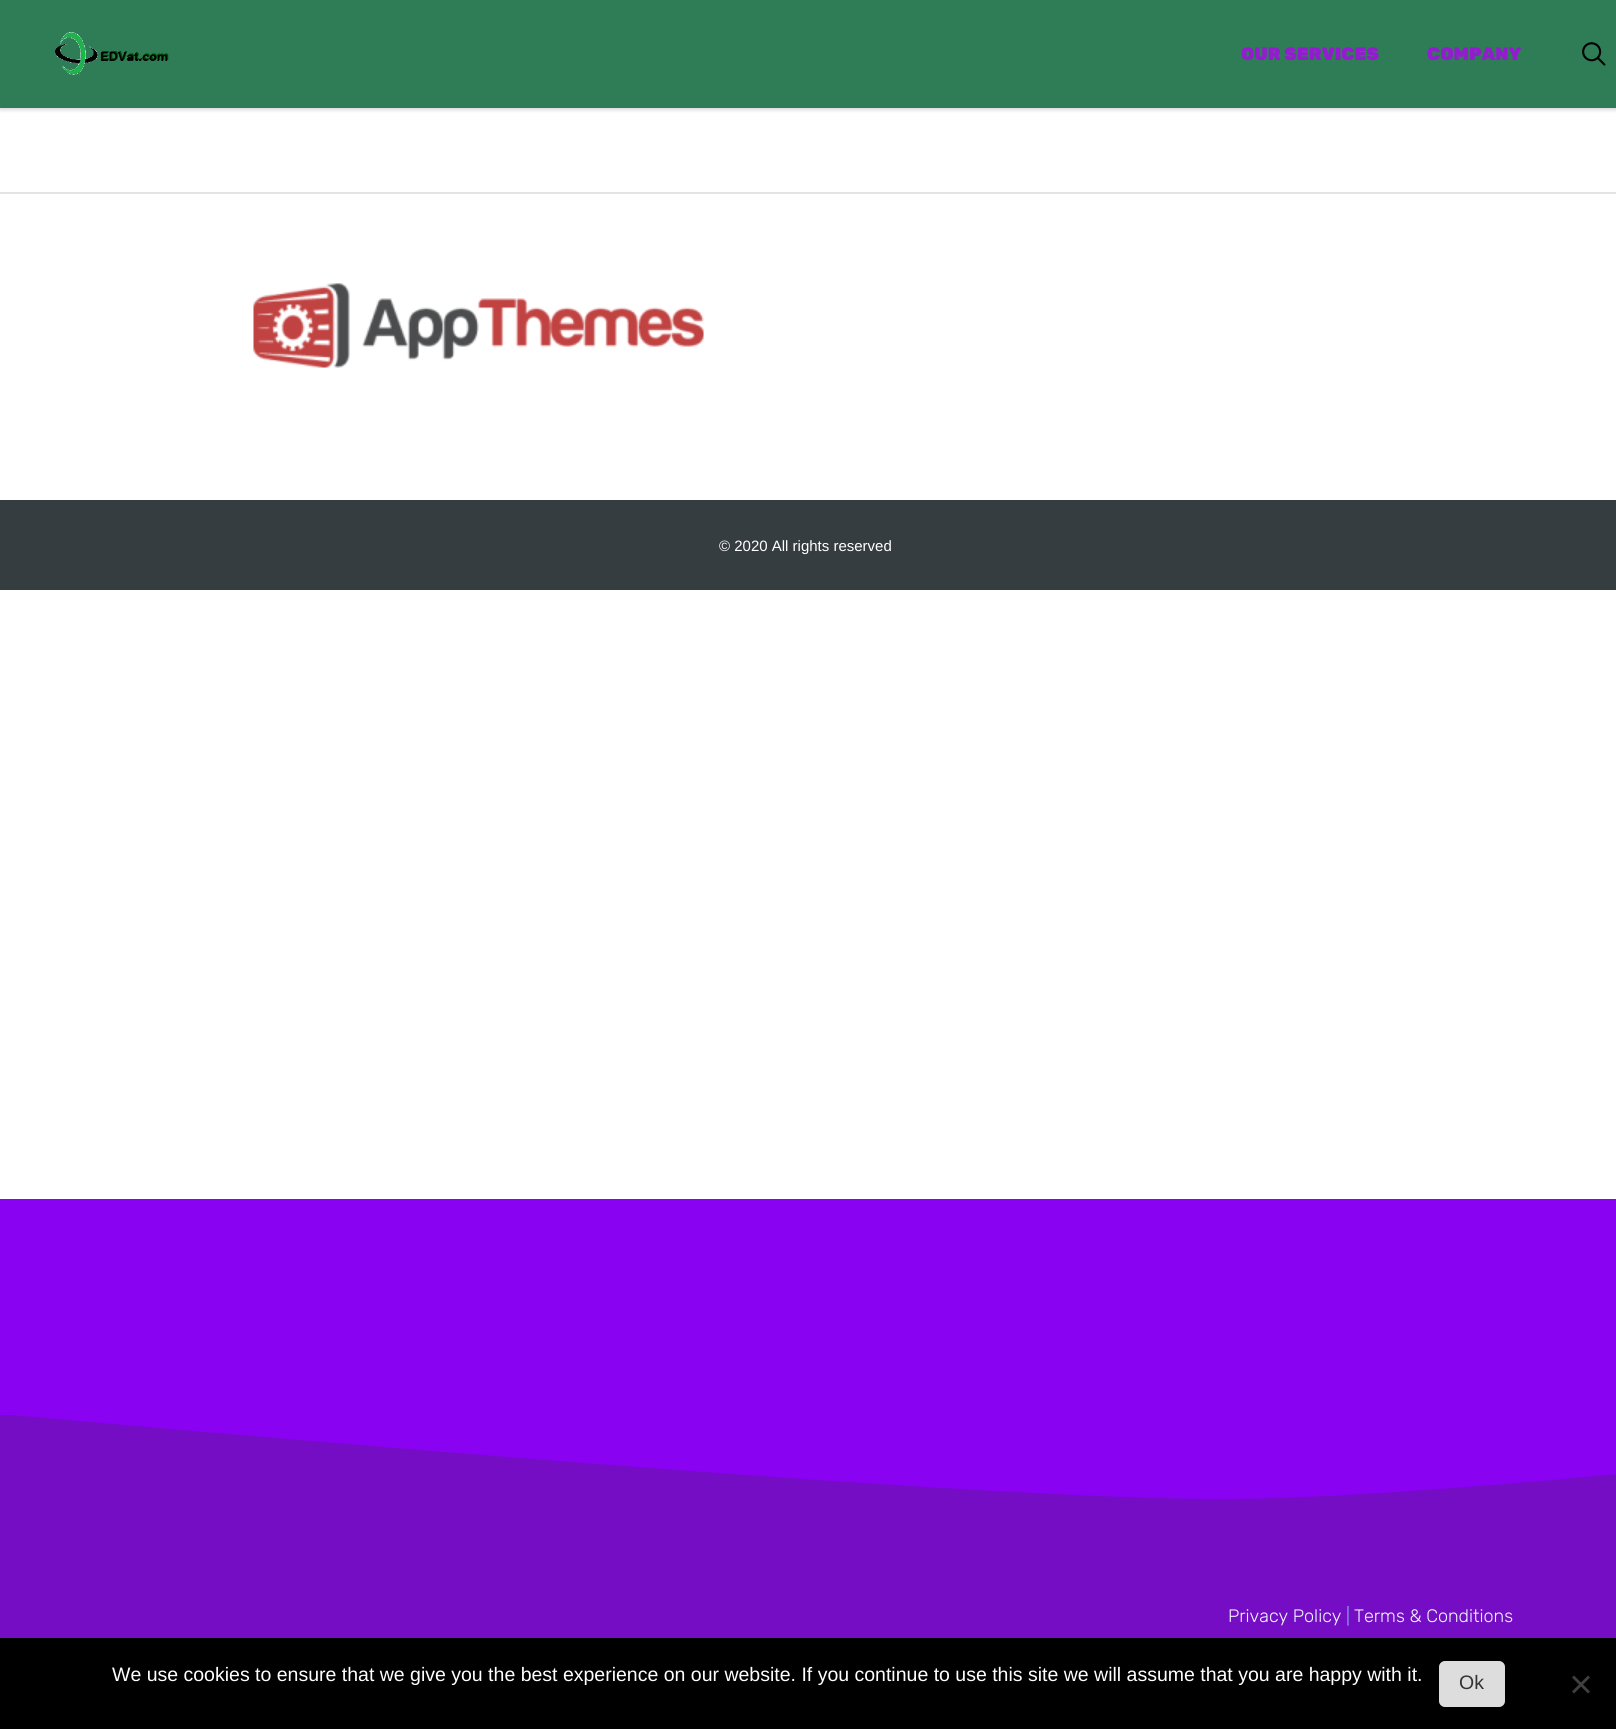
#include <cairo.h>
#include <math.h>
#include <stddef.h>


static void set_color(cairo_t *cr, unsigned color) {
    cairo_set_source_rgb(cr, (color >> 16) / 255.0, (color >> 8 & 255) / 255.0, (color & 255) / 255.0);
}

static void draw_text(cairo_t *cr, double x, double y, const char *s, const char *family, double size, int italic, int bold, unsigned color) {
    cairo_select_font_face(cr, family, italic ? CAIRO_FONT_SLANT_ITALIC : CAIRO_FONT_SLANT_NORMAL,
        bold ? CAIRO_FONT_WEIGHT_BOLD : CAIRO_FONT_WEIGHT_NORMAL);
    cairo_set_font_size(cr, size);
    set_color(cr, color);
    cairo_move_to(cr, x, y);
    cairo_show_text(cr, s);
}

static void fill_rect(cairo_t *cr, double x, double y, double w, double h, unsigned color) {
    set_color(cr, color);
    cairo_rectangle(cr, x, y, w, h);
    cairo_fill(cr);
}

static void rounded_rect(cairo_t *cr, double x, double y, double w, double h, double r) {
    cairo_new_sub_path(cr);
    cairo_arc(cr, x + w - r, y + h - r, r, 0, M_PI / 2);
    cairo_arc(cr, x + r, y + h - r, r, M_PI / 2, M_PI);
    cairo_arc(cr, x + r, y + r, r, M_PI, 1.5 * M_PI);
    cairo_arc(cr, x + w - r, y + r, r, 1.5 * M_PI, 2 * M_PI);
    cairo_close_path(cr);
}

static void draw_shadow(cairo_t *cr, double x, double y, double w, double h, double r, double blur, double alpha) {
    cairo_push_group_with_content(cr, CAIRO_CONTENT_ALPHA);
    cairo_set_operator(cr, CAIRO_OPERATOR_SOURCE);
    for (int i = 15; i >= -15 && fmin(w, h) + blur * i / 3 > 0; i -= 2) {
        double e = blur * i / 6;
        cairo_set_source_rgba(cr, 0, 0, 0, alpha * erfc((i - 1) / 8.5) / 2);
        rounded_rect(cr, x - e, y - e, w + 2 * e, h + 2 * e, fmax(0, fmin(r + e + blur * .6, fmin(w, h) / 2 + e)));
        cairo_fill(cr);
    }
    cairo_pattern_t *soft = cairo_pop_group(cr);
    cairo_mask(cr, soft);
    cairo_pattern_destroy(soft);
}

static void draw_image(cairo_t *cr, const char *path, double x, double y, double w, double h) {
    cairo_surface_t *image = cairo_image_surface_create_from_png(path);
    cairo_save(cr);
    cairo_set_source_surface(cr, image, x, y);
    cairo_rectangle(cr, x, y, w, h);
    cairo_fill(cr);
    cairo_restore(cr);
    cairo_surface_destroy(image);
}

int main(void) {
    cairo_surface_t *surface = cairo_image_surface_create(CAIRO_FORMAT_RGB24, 1616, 1729);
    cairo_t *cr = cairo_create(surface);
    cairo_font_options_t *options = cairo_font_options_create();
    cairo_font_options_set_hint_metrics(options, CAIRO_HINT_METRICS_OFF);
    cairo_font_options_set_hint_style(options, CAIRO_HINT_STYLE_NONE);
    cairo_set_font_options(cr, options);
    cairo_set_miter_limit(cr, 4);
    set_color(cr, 0xFFFFFF);
    cairo_paint(cr);
    cairo_save(cr);
    cairo_rectangle(cr, 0, 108, 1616, 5);
    cairo_clip(cr);
    set_color(cr, 0x9C9C9C);
    draw_shadow(cr, 0, 2, 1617, 108, 0, 2, 0.4);
    cairo_restore(cr);
    cairo_set_source_rgba(cr, 0.145, 0.467, 0.31, 0.95);
    cairo_rectangle(cr, 0, 0, 1616, 108);
    cairo_fill(cr);
    draw_image(cr, "assets/img1.png", 55, 32, 114, 43);
    draw_text(cr, 1241, 60, "OUR SERVICES", "Rubik Black", 18, 0, 0, 0x931CCF);
    draw_text(cr, 1427, 60, "COMPANY", "Rubik Black", 18, 0, 0, 0x931CCF);
    draw_image(cr, "assets/img2.png", 1582, 42, 24, 24);
    fill_rect(cr, 0, 192, 1616, 2, 0xE3E3E3);
    draw_image(cr, "assets/img3.png", 253, 283, 451, 85);
    fill_rect(cr, 0, 500, 1616, 90, 0x363D41);
    draw_text(cr, 719, 551, "© 2020 All rights reserved", "Liberation Sans", 15, 0, 0, 0xFFFFFF);
    fill_rect(cr, 0, 1199, 1616, 300, 0x8A02F2);
    cairo_save(cr);
    cairo_rectangle(cr, 0, 1415, 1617, 90);
    cairo_clip(cr);
    set_color(cr, 0x740DC3);
    cairo_new_path(cr);
    cairo_move_to(cr, 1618, 1474);
    cairo_curve_to(cr, 1437, 1491, 1305, 1499, 1221, 1499);
    cairo_curve_to(cr, 1049, 1499, 641, 1471, -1, 1414);
    cairo_line_to(cr, -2, 1504);
    cairo_line_to(cr, 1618, 1504);
    cairo_close_path(cr);
    cairo_fill(cr);
    cairo_restore(cr);
    fill_rect(cr, 0, 1504, 1616, 134, 0x740DC3);
    draw_text(cr, 1228, 1622, "Privacy Policy", "Rubik Light", 18, 0, 0, 0xF0F5FE);
    draw_text(cr, 1346, 1622, "|", "Rubik Light", 18, 0, 0, 0x89AFFA);
    draw_text(cr, 1354, 1622, "Terms & Conditions", "Rubik Light", 18, 0, 0, 0xF0F5FE);
    fill_rect(cr, 0, 1638, 1616, 91, 0x000000);
    draw_text(cr, 112, 1681, "We use cookies to ensure that we give you the best experience on our website. If you continue to use this site we will assume that you are happy with it.", "Liberation Sans", 19.5, 0, 0, 0xFFFFFF);
    set_color(cr, 0xDDDDDD);
    rounded_rect(cr, 1439, 1661, 66, 46, 6);
    cairo_fill(cr);
    draw_text(cr, 1459, 1689, "Ok", "Liberation Sans", 19.5, 0, 0, 0x333333);
    set_color(cr, 0x404040);
    cairo_new_path(cr);
    cairo_move_to(cr, 1588, 1675.5);
    cairo_line_to(cr, 1590, 1677.5);
    cairo_line_to(cr, 1574, 1693.5);
    cairo_line_to(cr, 1572, 1691.5);
    cairo_close_path(cr);
    cairo_fill(cr);
    cairo_new_path(cr);
    cairo_move_to(cr, 1572, 1677.5);
    cairo_line_to(cr, 1574, 1675.5);
    cairo_line_to(cr, 1590, 1691.5);
    cairo_line_to(cr, 1588, 1693.5);
    cairo_close_path(cr);
    cairo_fill(cr);
    cairo_surface_write_to_png(surface, "output.png");
    cairo_font_options_destroy(options);
    cairo_destroy(cr);
    cairo_surface_destroy(surface);
    return 0;
}
